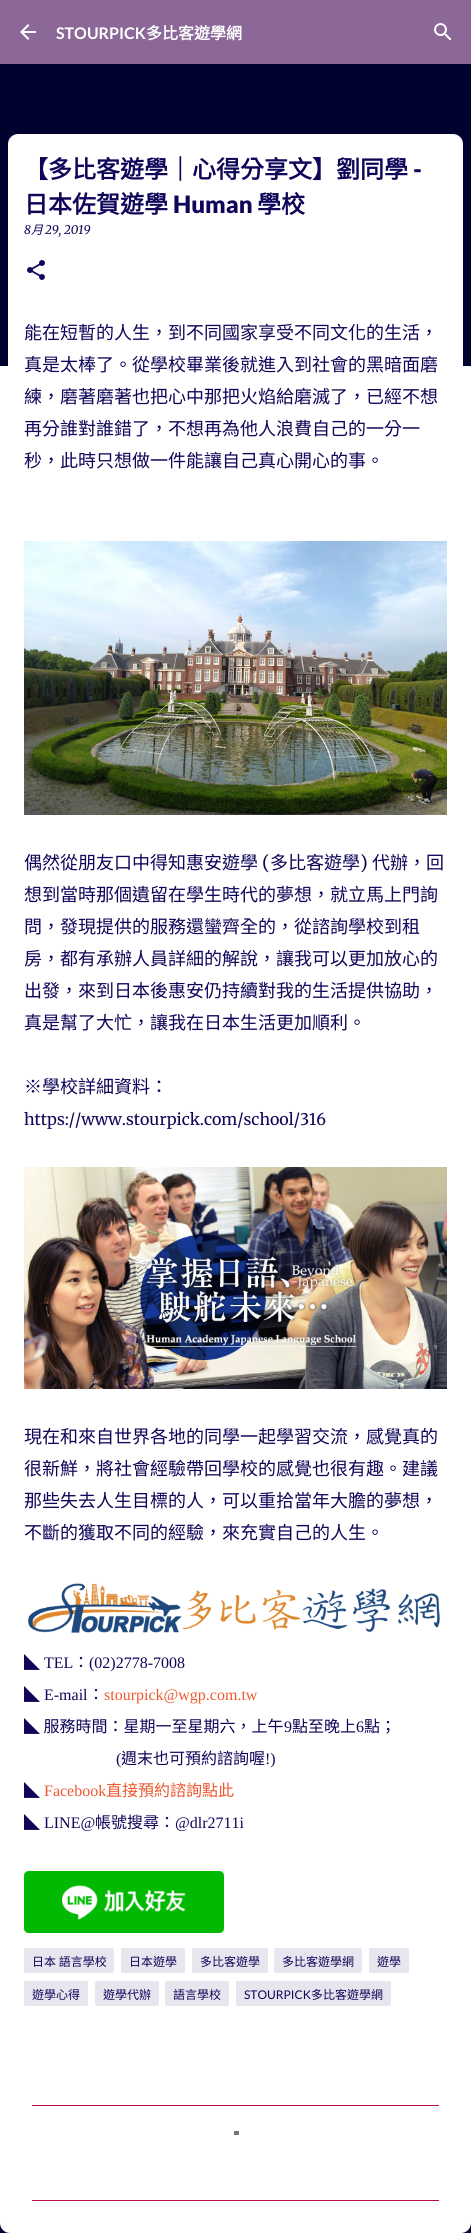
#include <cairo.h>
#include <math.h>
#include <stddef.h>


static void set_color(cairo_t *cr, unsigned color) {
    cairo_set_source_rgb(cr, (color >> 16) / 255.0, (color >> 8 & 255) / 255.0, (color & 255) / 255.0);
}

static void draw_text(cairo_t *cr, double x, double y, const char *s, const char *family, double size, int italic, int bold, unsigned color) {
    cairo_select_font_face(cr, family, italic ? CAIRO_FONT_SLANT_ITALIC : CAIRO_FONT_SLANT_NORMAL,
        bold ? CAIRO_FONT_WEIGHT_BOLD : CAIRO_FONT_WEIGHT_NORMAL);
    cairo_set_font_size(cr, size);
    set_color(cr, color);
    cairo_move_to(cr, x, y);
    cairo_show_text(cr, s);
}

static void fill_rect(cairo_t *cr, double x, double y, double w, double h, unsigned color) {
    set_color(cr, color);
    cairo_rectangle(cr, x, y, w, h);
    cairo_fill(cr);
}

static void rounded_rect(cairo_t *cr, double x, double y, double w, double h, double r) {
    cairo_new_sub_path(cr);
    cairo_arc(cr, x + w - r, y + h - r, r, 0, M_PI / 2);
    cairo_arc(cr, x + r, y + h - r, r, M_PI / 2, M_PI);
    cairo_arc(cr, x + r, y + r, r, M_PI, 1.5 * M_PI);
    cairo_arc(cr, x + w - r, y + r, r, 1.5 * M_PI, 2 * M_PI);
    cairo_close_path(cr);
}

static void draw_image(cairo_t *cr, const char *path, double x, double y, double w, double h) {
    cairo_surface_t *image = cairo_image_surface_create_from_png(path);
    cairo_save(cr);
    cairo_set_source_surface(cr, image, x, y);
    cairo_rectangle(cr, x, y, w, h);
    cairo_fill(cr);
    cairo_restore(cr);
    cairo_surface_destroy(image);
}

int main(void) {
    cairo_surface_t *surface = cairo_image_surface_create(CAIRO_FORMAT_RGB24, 471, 2233);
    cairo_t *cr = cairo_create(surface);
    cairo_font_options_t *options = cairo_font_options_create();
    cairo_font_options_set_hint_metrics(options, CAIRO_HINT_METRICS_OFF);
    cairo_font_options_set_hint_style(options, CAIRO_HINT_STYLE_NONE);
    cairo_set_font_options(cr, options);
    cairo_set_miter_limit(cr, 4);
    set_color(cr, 0x020230);
    cairo_paint(cr);
    fill_rect(cr, 0, 0, 471, 64, 0x8B6897);
    draw_image(cr, "assets/img1.png", 20, 24, 16, 16);
    draw_text(cr, 56, 39, "STOURPICK", "Lato", 16, 0, 1, 0xFFFFFF);
    draw_text(cr, 146, 39, "多比客遊學網", "Noto Sans CJK TC", 16, 0, 1, 0xFFFFFF);
    draw_image(cr, "assets/img2.png", 434, 23, 18, 18);
    fill_rect(cr, 0, 366, 471, 1739, 0xFFFFFF);
    cairo_new_path(cr);
    cairo_move_to(cr, 18, 134);
    cairo_line_to(cr, 453, 134);
    cairo_curve_to(cr, 458.5, 134, 463, 138.5, 463, 144);
    cairo_line_to(cr, 463, 2105);
    cairo_line_to(cr, 8, 2105);
    cairo_line_to(cr, 8, 144);
    cairo_curve_to(cr, 8, 138.5, 12.5, 134, 18, 134);
    cairo_close_path(cr);
    cairo_fill(cr);
    draw_text(cr, 24, 178, "【多比客遊學｜心得分享文】劉同學", "Noto Sans CJK TC", 24, 0, 1, 0x0F0659);
    draw_text(cr, 413, 178, "-", "Lato Black", 24, 0, 0, 0x0F0659);
    draw_text(cr, 24, 213, "日本佐賀遊學", "Noto Sans CJK TC", 24, 0, 1, 0x0F0659);
    draw_text(cr, 173, 213, "Human", "Lato Black", 24, 0, 0, 0x0F0659);
    draw_text(cr, 257, 213, "學校", "Noto Sans CJK TC", 24, 0, 1, 0x0F0659);
    draw_text(cr, 24, 234, "8", "Merriweather Light", 12, 1, 0, 0x0F0659);
    draw_text(cr, 31, 234, "月", "Noto Sans CJK TC", 12, 1, 0, 0x0F0659);
    draw_text(cr, 45, 234, "29, 2019", "Merriweather Light", 12, 1, 0, 0x0F0659);
    draw_image(cr, "assets/img3.png", 27, 260, 18, 20);
    draw_text(cr, 24, 339, "能在短暫的人生，到不同國家享受不同文化的生活，", "Noto Sans CJK TC", 18, 0, 0, 0x0F0659);
    draw_text(cr, 24, 371, "真是太棒了。從學校畢業後就進入到社會的黑暗面磨", "Noto Sans CJK TC", 18, 0, 0, 0x0F0659);
    draw_text(cr, 24, 403, "練，磨著磨著也把心中那把火焰給磨滅了，已經不想", "Noto Sans CJK TC", 18, 0, 0, 0x0F0659);
    draw_text(cr, 24, 435, "再分誰對誰錯了，不想再為他人浪費自己的一分一", "Noto Sans CJK TC", 18, 0, 0, 0x0F0659);
    draw_text(cr, 24, 467, "秒，此時只想做一件能讓自己真心開心的事。", "Noto Sans CJK TC", 18, 0, 0, 0x0F0659);
    draw_image(cr, "assets/img4.png", 24, 541, 423, 274);
    draw_text(cr, 24, 869, "偶然從朋友口中得知惠安遊學", "Noto Sans CJK TC", 18, 0, 0, 0x0F0659);
    draw_text(cr, 262, 869, "(", "Merriweather Light", 18, 0, 0, 0x0F0659);
    draw_text(cr, 270, 869, "多比客遊學", "Noto Sans CJK TC", 18, 0, 0, 0x0F0659);
    draw_text(cr, 360, 869, ")", "Merriweather Light", 18, 0, 0, 0x0F0659);
    draw_text(cr, 372, 869, "代辦，回", "Noto Sans CJK TC", 18, 0, 0, 0x0F0659);
    draw_text(cr, 24, 901, "想到當時那個遺留在學生時代的夢想，就立馬上門詢", "Noto Sans CJK TC", 18, 0, 0, 0x0F0659);
    draw_text(cr, 24, 933, "問，發現提供的服務還蠻齊全的，從諮詢學校到租", "Noto Sans CJK TC", 18, 0, 0, 0x0F0659);
    draw_text(cr, 24, 965, "房，都有承辦人員詳細的解說，讓我可以更加放心的", "Noto Sans CJK TC", 18, 0, 0, 0x0F0659);
    draw_text(cr, 24, 997, "出發，來到日本後惠安仍持續對我的生活提供協助，", "Noto Sans CJK TC", 18, 0, 0, 0x0F0659);
    draw_text(cr, 24, 1029, "真是幫了大忙，讓我在日本生活更加順利。", "Noto Sans CJK TC", 18, 0, 0, 0x0F0659);
    draw_text(cr, 24, 1093, "※學校詳細資料：", "Noto Sans CJK TC", 18, 0, 0, 0x0F0659);
    draw_text(cr, 24, 1125, "https://www.stourpick.com/school/316", "Merriweather Light", 16, 0, 0, 0x0F0659);
    draw_image(cr, "assets/img5.png", 24, 1167, 423, 222);
    draw_text(cr, 24, 1443, "現在和來自世界各地的同學一起學習交流，感覺真的", "Noto Sans CJK TC", 18, 0, 0, 0x0F0659);
    draw_text(cr, 24, 1475, "很新鮮，將社會經驗帶回學校的感覺也很有趣。建議", "Noto Sans CJK TC", 18, 0, 0, 0x0F0659);
    draw_text(cr, 24, 1507, "那些失去人生目標的人，可以重拾當年大膽的夢想，", "Noto Sans CJK TC", 18, 0, 0, 0x0F0659);
    draw_text(cr, 24, 1539, "不斷的獲取不同的經驗，來充實自己的人生。", "Noto Sans CJK TC", 18, 0, 0, 0x0F0659);
    draw_image(cr, "assets/img6.png", 27, 1583, 414, 50);
    draw_text(cr, 24, 1668, "◣", "Noto Sans CJK TC", 16, 0, 0, 0x0F0659);
    draw_text(cr, 44, 1668, "TEL", "Liberation Serif", 16, 0, 0, 0x0F0659);
    draw_text(cr, 73, 1668, "：", "Noto Sans CJK TC", 16, 0, 0, 0x0F0659);
    draw_text(cr, 89, 1668, "(02)2778-7008", "Liberation Serif", 16, 0, 0, 0x0F0659);
    draw_text(cr, 24, 1700, "◣", "Noto Sans CJK TC", 16, 0, 0, 0x0F0659);
    draw_text(cr, 44, 1700, "E-mail", "Liberation Serif", 16, 0, 0, 0x0F0659);
    draw_text(cr, 88, 1700, "：", "Noto Sans CJK TC", 16, 0, 0, 0x0F0659);
    draw_text(cr, 104, 1700, "stourpick@wgp.com.tw", "Liberation Serif", 16, 0, 0, 0xEE582E);
    draw_text(cr, 24, 1732, "◣ 服務時間：星期一至星期六，上午", "Noto Sans CJK TC", 16, 0, 0, 0x0F0659);
    draw_text(cr, 284, 1732, "9", "Liberation Serif", 16, 0, 0, 0x0F0659);
    draw_text(cr, 292, 1732, "點至晚上", "Noto Sans CJK TC", 16, 0, 0, 0x0F0659);
    draw_text(cr, 356, 1732, "6", "Liberation Serif", 16, 0, 0, 0x0F0659);
    draw_text(cr, 364, 1732, "點；", "Noto Sans CJK TC", 16, 0, 0, 0x0F0659);
    draw_text(cr, 116, 1764, "(", "Liberation Serif", 16, 0, 0, 0x0F0659);
    draw_text(cr, 121, 1764, "週末也可預約諮詢喔", "Noto Sans CJK TC", 16, 0, 0, 0x0F0659);
    draw_text(cr, 265, 1764, "!)", "Liberation Serif", 16, 0, 0, 0x0F0659);
    draw_text(cr, 24, 1796, "◣", "Noto Sans CJK TC", 16, 0, 0, 0x0F0659);
    draw_text(cr, 44, 1796, "Facebook", "Liberation Serif", 16, 0, 0, 0xEE582E);
    draw_text(cr, 106, 1796, "直接預約諮詢點此", "Noto Sans CJK TC", 16, 0, 0, 0xEE582E);
    draw_text(cr, 24, 1828, "◣", "Noto Sans CJK TC", 16, 0, 0, 0x0F0659);
    draw_text(cr, 44, 1828, "LINE@", "Liberation Serif", 16, 0, 0, 0x0F0659);
    draw_text(cr, 95, 1828, "帳號搜尋：", "Noto Sans CJK TC", 16, 0, 0, 0x0F0659);
    draw_text(cr, 175, 1828, "@dlr2711i", "Liberation Serif", 16, 0, 0, 0x0F0659);
    draw_image(cr, "assets/img7.png", 24, 1871, 200, 62);
    set_color(cr, 0xE7E6EE);
    rounded_rect(cr, 24, 1948, 90, 25, 2);
    cairo_fill(cr);
    draw_text(cr, 32, 1966, "日本 語言學校", "Noto Sans CJK TC", 12, 0, 0, 0x0F0659);
    set_color(cr, 0xE7E6EE);
    rounded_rect(cr, 121, 1948, 64, 25, 2);
    cairo_fill(cr);
    draw_text(cr, 129, 1966, "日本遊學", "Noto Sans CJK TC", 12, 0, 0, 0x0F0659);
    set_color(cr, 0xE7E6EE);
    rounded_rect(cr, 192, 1948, 76, 25, 2);
    cairo_fill(cr);
    draw_text(cr, 200, 1966, "多比客遊學", "Noto Sans CJK TC", 12, 0, 0, 0x0F0659);
    set_color(cr, 0xE7E6EE);
    rounded_rect(cr, 274, 1948, 88, 25, 2);
    cairo_fill(cr);
    draw_text(cr, 282, 1966, "多比客遊學網", "Noto Sans CJK TC", 12, 0, 0, 0x0F0659);
    set_color(cr, 0xE7E6EE);
    rounded_rect(cr, 369, 1948, 40, 25, 2);
    cairo_fill(cr);
    draw_text(cr, 377, 1966, "遊學", "Noto Sans CJK TC", 12, 0, 0, 0x0F0659);
    set_color(cr, 0xE7E6EE);
    rounded_rect(cr, 24, 1981, 64, 25, 2);
    cairo_fill(cr);
    draw_text(cr, 32, 1999, "遊學心得", "Noto Sans CJK TC", 12, 0, 0, 0x0F0659);
    set_color(cr, 0xE7E6EE);
    rounded_rect(cr, 95, 1981, 64, 25, 2);
    cairo_fill(cr);
    draw_text(cr, 103, 1999, "遊學代辦", "Noto Sans CJK TC", 12, 0, 0, 0x0F0659);
    set_color(cr, 0xE7E6EE);
    rounded_rect(cr, 165, 1981, 64, 25, 2);
    cairo_fill(cr);
    draw_text(cr, 173, 1999, "語言學校", "Noto Sans CJK TC", 12, 0, 0, 0x0F0659);
    set_color(cr, 0xE7E6EE);
    rounded_rect(cr, 236, 1981, 155, 25, 2);
    cairo_fill(cr);
    draw_text(cr, 244, 1999, "STOURPICK", "Lato", 12, 0, 0, 0x0F0659);
    draw_text(cr, 311, 1999, "多比客遊學網", "Noto Sans CJK TC", 12, 0, 0, 0x0F0659);
    set_color(cr, 0xFFFFFF);
    cairo_new_path(cr);
    cairo_move_to(cr, 0, 2105);
    cairo_line_to(cr, 471, 2105);
    cairo_line_to(cr, 471, 2223);
    cairo_curve_to(cr, 471, 2228.5, 466.5, 2233, 461, 2233);
    cairo_line_to(cr, 10, 2233);
    cairo_curve_to(cr, 4.5, 2233, 0, 2228.5, 0, 2223);
    cairo_close_path(cr);
    cairo_fill(cr);
    fill_rect(cr, 32, 2105, 407, 1, 0xBD0D40);
    fill_rect(cr, 32, 2200, 407, 1, 0xBD0D40);
    fill_rect(cr, 234, 2131, 5, 4, 0x757575);
    cairo_surface_write_to_png(surface, "output.png");
    cairo_font_options_destroy(options);
    cairo_destroy(cr);
    cairo_surface_destroy(surface);
    return 0;
}
